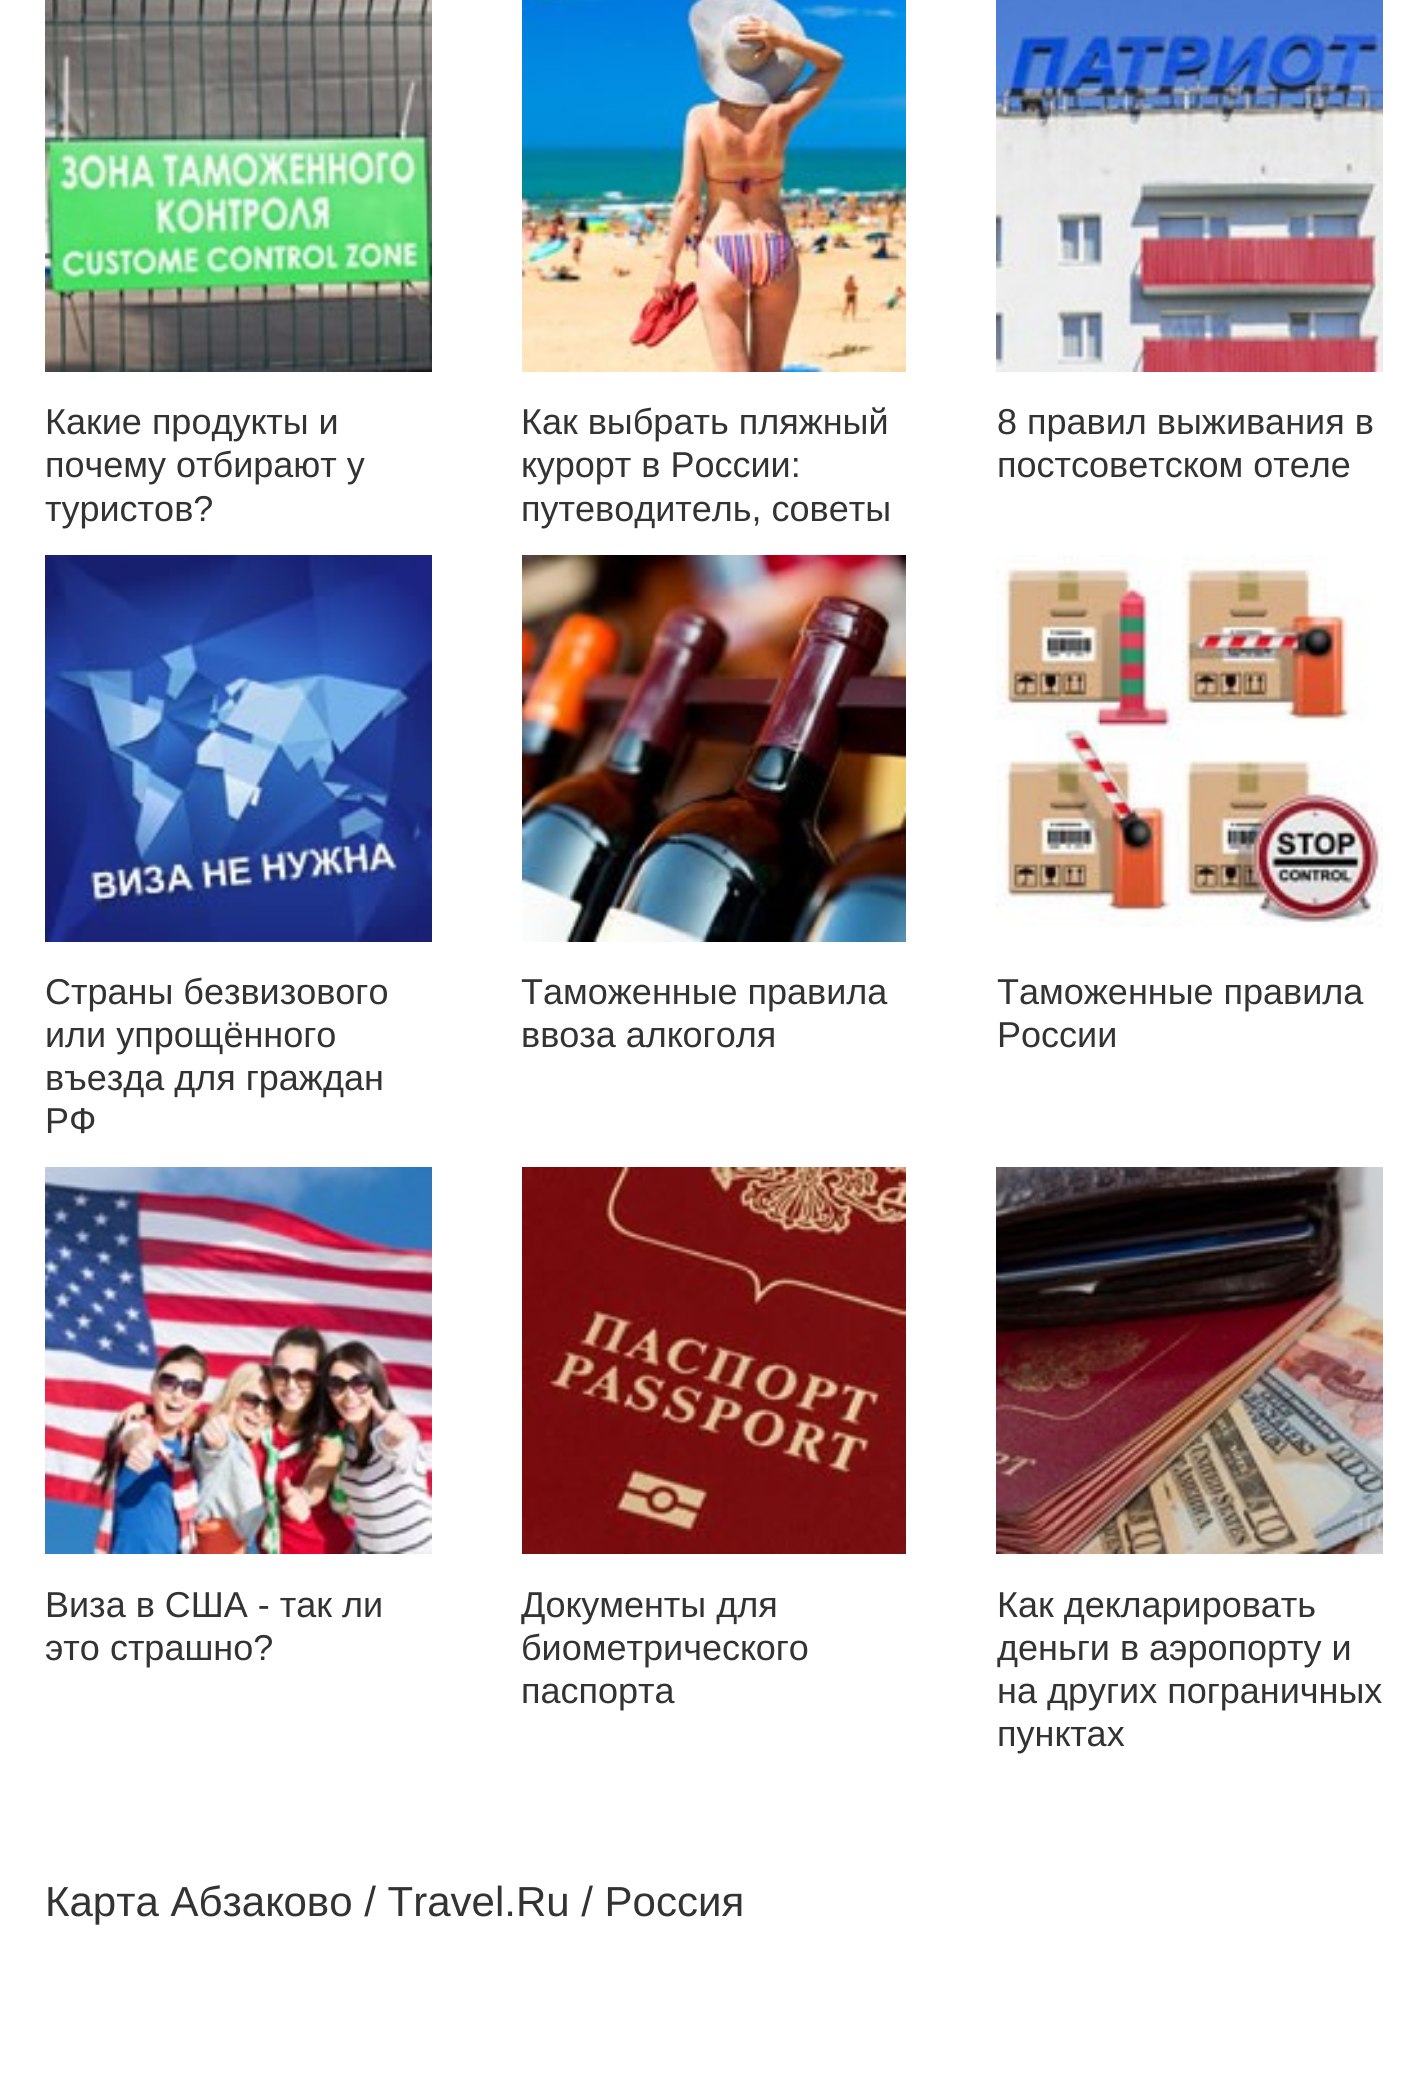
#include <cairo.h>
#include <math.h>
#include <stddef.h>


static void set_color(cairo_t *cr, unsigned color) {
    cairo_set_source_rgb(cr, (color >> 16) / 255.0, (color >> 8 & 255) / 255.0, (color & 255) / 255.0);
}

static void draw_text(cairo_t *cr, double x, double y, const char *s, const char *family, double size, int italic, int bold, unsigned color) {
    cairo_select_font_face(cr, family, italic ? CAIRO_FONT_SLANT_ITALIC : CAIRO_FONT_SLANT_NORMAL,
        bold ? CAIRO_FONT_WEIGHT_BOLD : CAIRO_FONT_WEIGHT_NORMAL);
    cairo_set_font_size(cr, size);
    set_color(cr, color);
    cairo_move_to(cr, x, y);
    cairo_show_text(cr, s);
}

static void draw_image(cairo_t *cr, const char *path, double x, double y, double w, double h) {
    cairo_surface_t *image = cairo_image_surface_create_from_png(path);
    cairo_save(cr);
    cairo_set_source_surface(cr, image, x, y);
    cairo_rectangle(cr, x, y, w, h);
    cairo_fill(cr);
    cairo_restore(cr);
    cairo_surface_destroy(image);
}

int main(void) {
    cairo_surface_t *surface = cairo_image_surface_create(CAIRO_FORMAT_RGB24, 1426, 2079);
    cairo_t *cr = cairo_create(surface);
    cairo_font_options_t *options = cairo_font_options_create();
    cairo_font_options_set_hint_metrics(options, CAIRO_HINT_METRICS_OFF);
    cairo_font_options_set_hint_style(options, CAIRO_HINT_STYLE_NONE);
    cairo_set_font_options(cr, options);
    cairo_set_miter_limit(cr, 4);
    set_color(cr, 0xFFFFFF);
    cairo_paint(cr);
    draw_image(cr, "assets/img1.png", 45, 0, 387, 372);
    draw_text(cr, 45, 434, "Какие продукты и", "Liberation Sans", 36, 0, 0, 0x333333);
    draw_text(cr, 45, 477, "почему отбирают у", "Liberation Sans", 36, 0, 0, 0x333333);
    draw_text(cr, 45, 521, "туристов?", "Liberation Sans", 36, 0, 0, 0x333333);
    draw_image(cr, "assets/img2.png", 522, 0, 384, 372);
    draw_text(cr, 521, 434, "Как выбрать пляжный", "Liberation Sans", 36, 0, 0, 0x333333);
    draw_text(cr, 521, 477, "курорт в России:", "Liberation Sans", 36, 0, 0, 0x333333);
    draw_text(cr, 521, 521, "путеводитель, советы", "Liberation Sans", 36, 0, 0, 0x333333);
    draw_image(cr, "assets/img3.png", 996, 0, 387, 372);
    draw_text(cr, 997, 434, "8 правил выживания в", "Liberation Sans", 36, 0, 0, 0x333333);
    draw_text(cr, 997, 477, "постсоветском отеле", "Liberation Sans", 36, 0, 0, 0x333333);
    draw_image(cr, "assets/img4.png", 45, 555, 387, 387);
    draw_text(cr, 45, 1004, "Страны безвизового", "Liberation Sans", 36, 0, 0, 0x333333);
    draw_text(cr, 45, 1047, "или упрощённого", "Liberation Sans", 36, 0, 0, 0x333333);
    draw_text(cr, 45, 1090, "въезда для граждан", "Liberation Sans", 36, 0, 0, 0x333333);
    draw_text(cr, 45, 1133, "РФ", "Liberation Sans", 36, 0, 0, 0x333333);
    draw_image(cr, "assets/img5.png", 522, 555, 384, 387);
    draw_text(cr, 521, 1004, "Таможенные правила", "Liberation Sans", 36, 0, 0, 0x333333);
    draw_text(cr, 521, 1047, "ввоза алкоголя", "Liberation Sans", 36, 0, 0, 0x333333);
    draw_image(cr, "assets/img6.png", 996, 555, 387, 372);
    draw_text(cr, 997, 1004, "Таможенные правила", "Liberation Sans", 36, 0, 0, 0x333333);
    draw_text(cr, 997, 1047, "России", "Liberation Sans", 36, 0, 0, 0x333333);
    draw_image(cr, "assets/img7.png", 45, 1167, 387, 387);
    draw_text(cr, 45, 1617, "Виза в США - так ли", "Liberation Sans", 36, 0, 0, 0x333333);
    draw_text(cr, 45, 1660, "это страшно?", "Liberation Sans", 36, 0, 0, 0x333333);
    draw_image(cr, "assets/img8.png", 522, 1167, 384, 387);
    draw_text(cr, 521, 1617, "Документы для", "Liberation Sans", 36, 0, 0, 0x333333);
    draw_text(cr, 521, 1660, "биометрического", "Liberation Sans", 36, 0, 0, 0x333333);
    draw_text(cr, 521, 1703, "паспорта", "Liberation Sans", 36, 0, 0, 0x333333);
    draw_image(cr, "assets/img9.png", 996, 1167, 387, 387);
    draw_text(cr, 997, 1617, "Как декларировать", "Liberation Sans", 36, 0, 0, 0x333333);
    draw_text(cr, 997, 1660, "деньги в аэропорту и", "Liberation Sans", 36, 0, 0, 0x333333);
    draw_text(cr, 997, 1703, "на других пограничных", "Liberation Sans", 36, 0, 0, 0x333333);
    draw_text(cr, 997, 1746, "пунктах", "Liberation Sans", 36, 0, 0, 0x333333);
    draw_text(cr, 45, 1916, "Карта Абзаково / Travel.Ru / Россия", "Liberation Sans", 42, 0, 0, 0x333333);
    cairo_surface_write_to_png(surface, "output.png");
    cairo_font_options_destroy(options);
    cairo_destroy(cr);
    cairo_surface_destroy(surface);
    return 0;
}
